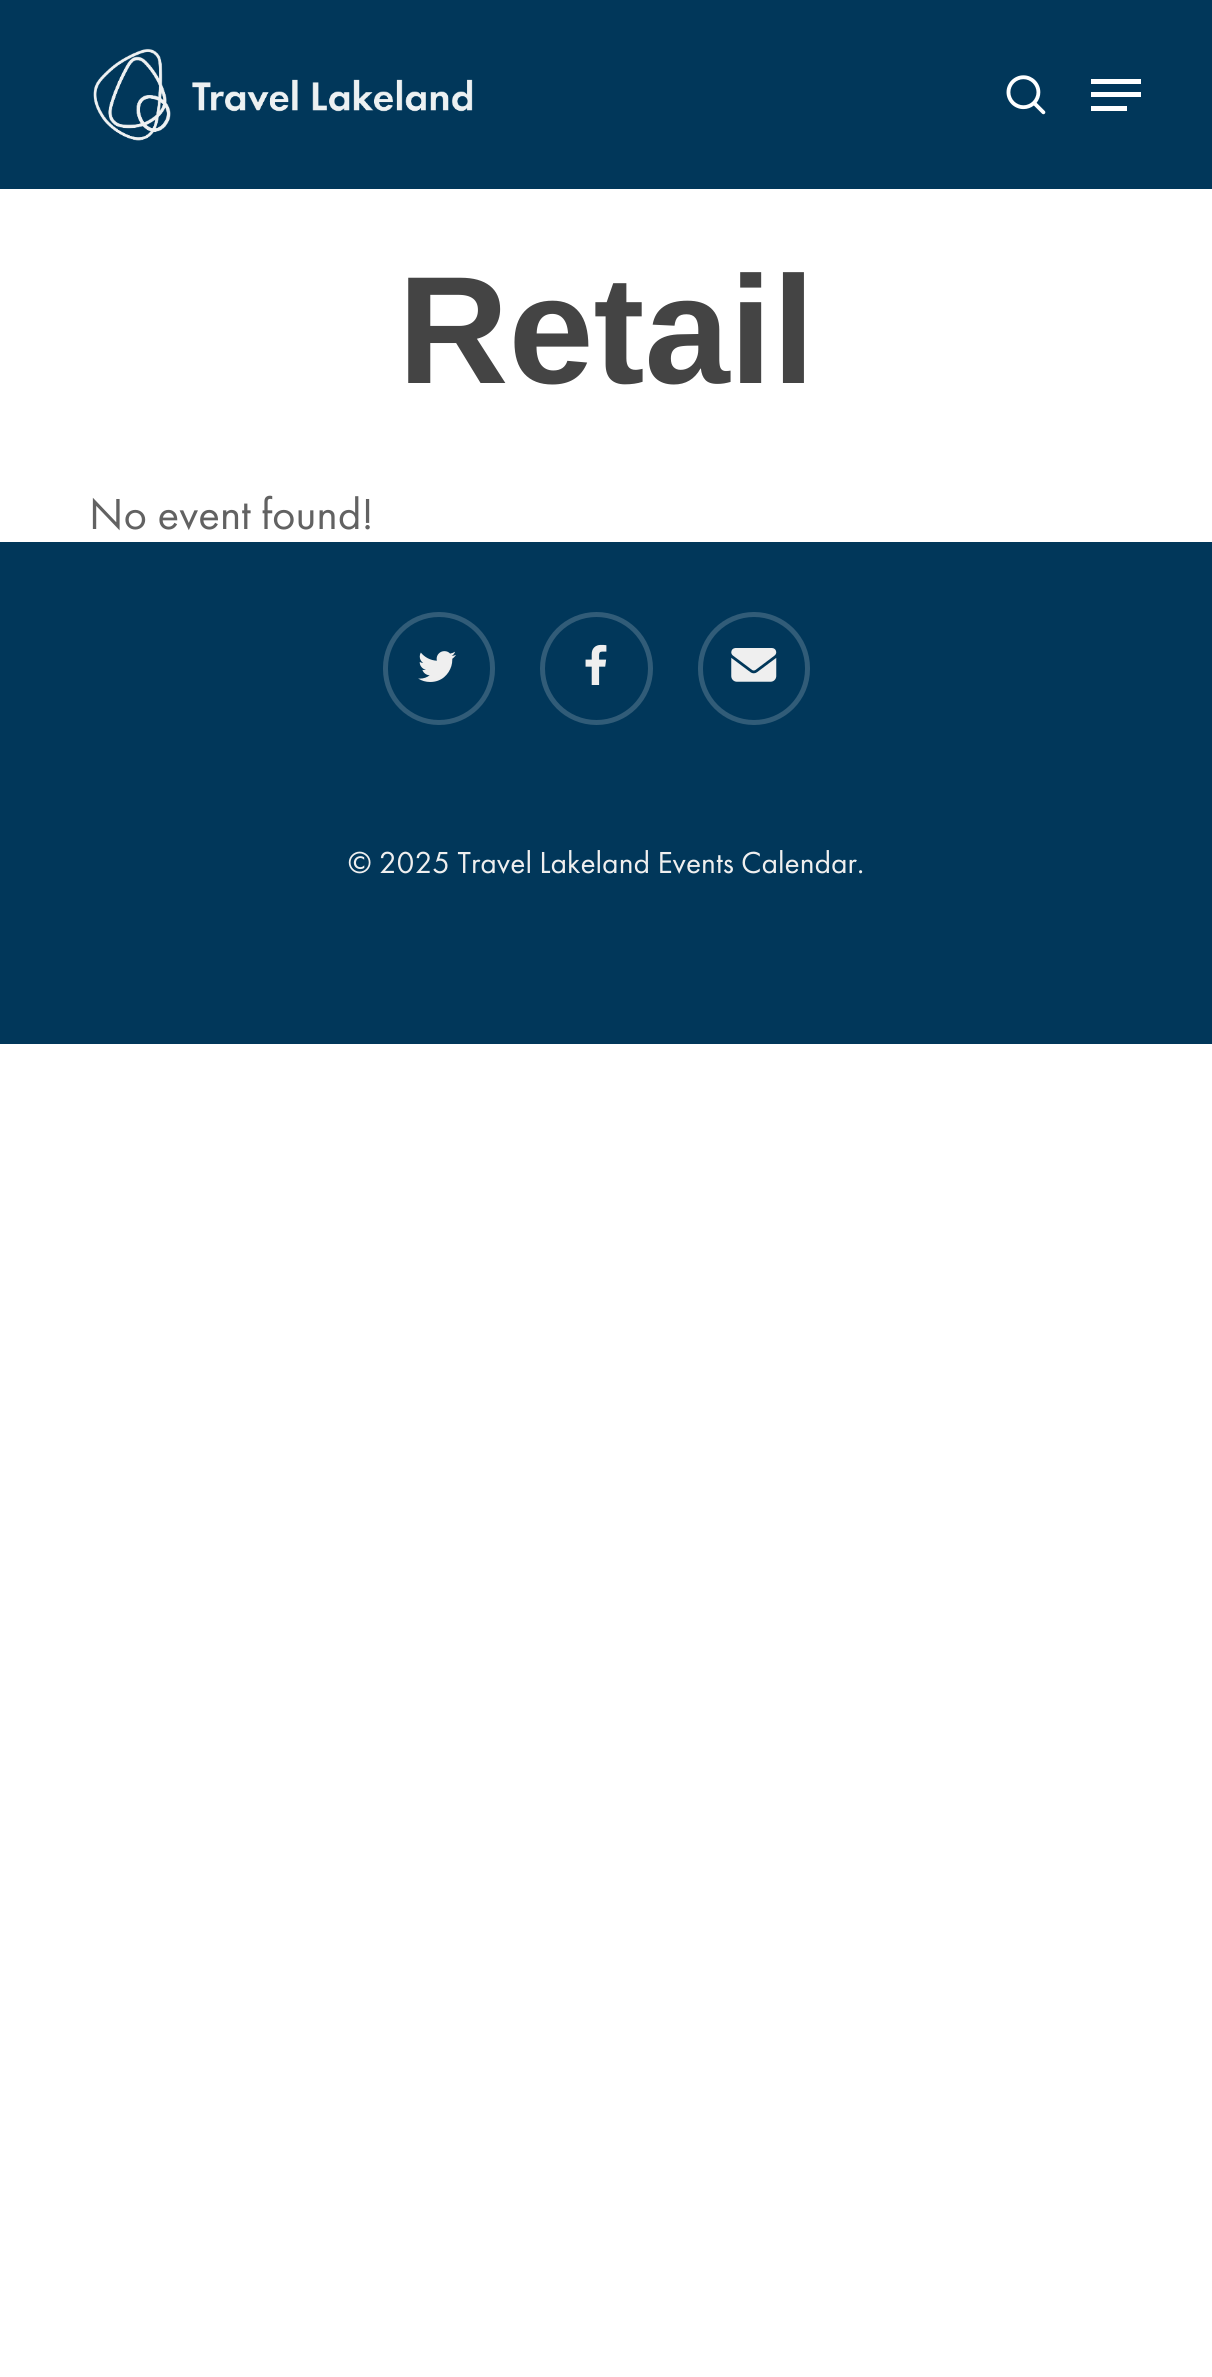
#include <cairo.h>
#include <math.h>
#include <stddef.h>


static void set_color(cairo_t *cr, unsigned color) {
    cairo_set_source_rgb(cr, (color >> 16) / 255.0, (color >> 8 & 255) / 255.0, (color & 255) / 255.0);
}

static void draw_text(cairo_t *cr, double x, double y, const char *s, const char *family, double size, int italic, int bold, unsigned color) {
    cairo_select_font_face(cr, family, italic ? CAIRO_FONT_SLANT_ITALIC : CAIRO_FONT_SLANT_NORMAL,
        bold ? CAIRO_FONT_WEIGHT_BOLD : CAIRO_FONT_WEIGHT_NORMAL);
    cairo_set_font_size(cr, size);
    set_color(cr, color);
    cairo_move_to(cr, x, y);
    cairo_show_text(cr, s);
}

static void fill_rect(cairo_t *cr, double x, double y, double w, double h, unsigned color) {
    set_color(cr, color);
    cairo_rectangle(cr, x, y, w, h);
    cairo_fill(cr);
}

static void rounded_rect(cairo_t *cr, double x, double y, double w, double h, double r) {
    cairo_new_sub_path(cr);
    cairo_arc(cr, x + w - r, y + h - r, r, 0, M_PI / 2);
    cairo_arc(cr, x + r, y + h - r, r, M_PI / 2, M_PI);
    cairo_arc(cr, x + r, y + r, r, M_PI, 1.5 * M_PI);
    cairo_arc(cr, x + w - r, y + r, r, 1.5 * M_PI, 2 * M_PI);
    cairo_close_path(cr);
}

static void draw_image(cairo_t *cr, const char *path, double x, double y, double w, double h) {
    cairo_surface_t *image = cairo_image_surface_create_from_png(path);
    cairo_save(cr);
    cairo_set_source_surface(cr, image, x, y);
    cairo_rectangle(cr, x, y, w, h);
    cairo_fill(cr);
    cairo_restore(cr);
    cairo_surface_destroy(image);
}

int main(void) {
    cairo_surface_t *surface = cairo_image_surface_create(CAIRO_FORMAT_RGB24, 1212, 2377);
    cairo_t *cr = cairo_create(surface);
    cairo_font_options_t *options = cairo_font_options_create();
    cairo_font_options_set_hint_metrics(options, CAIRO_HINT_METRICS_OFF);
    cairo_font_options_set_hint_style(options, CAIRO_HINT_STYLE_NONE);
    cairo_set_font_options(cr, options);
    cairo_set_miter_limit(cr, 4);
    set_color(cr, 0xFFFFFF);
    cairo_paint(cr);
    fill_rect(cr, 0, 0, 1212, 189, 0x01375A);
    draw_image(cr, "assets/img1.png", 93, 48, 380, 93);
    draw_image(cr, "assets/img2.png", 1006, 75, 40, 40);
    fill_rect(cr, 1091, 79, 50, 5, 0xFFFFFF);
    fill_rect(cr, 1091, 106, 36, 5, 0xFFFFFF);
    fill_rect(cr, 1091, 92, 50, 5, 0xFFFFFF);
    draw_text(cr, 398, 383, "Retail", "Liberation Sans", 153, 0, 1, 0x444444);
    draw_text(cr, 89, 529, "No event found!", "Futura PT", 45, 0, 0, 0x626262);
    fill_rect(cr, 0, 542, 1212, 502, 0x01375A);
    draw_image(cr, "assets/img3.png", 418, 651, 38, 31);
    rounded_rect(cr, 385.5, 614.5, 107, 108, 53.5);
    set_color(cr, 0x315C78);
    cairo_set_line_width(cr, 5);
    cairo_stroke(cr);
    draw_image(cr, "assets/img4.png", 585, 644, 22, 41);
    cairo_arc(cr, 596.5, 668.5, 54, 0, 2 * M_PI);
    cairo_stroke(cr);
    draw_image(cr, "assets/img5.png", 731, 648, 46, 34);
    rounded_rect(cr, 700.5, 614.5, 107, 108, 53.5);
    cairo_stroke(cr);
    draw_text(cr, 348, 873, "© 2025 Travel Lakeland Events Calendar.", "Futura PT", 31.5, 0, 0, 0xEFEFEF);
    cairo_surface_write_to_png(surface, "output.png");
    cairo_font_options_destroy(options);
    cairo_destroy(cr);
    cairo_surface_destroy(surface);
    return 0;
}
